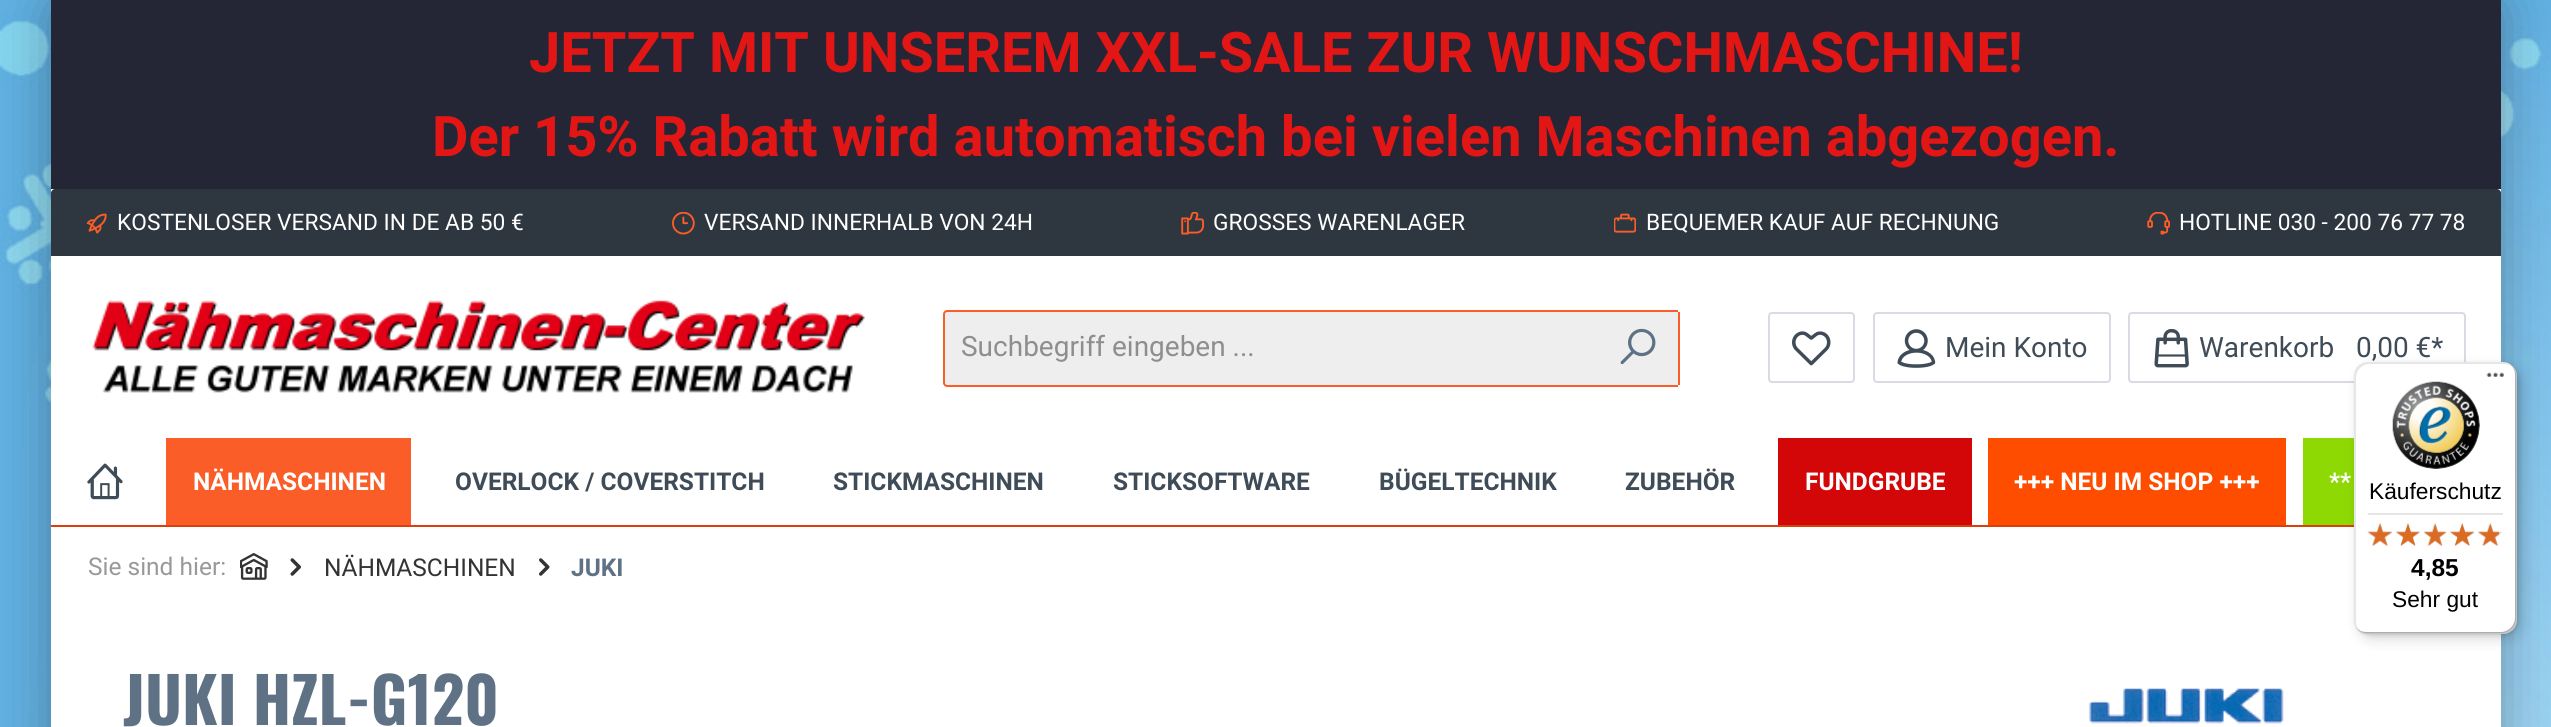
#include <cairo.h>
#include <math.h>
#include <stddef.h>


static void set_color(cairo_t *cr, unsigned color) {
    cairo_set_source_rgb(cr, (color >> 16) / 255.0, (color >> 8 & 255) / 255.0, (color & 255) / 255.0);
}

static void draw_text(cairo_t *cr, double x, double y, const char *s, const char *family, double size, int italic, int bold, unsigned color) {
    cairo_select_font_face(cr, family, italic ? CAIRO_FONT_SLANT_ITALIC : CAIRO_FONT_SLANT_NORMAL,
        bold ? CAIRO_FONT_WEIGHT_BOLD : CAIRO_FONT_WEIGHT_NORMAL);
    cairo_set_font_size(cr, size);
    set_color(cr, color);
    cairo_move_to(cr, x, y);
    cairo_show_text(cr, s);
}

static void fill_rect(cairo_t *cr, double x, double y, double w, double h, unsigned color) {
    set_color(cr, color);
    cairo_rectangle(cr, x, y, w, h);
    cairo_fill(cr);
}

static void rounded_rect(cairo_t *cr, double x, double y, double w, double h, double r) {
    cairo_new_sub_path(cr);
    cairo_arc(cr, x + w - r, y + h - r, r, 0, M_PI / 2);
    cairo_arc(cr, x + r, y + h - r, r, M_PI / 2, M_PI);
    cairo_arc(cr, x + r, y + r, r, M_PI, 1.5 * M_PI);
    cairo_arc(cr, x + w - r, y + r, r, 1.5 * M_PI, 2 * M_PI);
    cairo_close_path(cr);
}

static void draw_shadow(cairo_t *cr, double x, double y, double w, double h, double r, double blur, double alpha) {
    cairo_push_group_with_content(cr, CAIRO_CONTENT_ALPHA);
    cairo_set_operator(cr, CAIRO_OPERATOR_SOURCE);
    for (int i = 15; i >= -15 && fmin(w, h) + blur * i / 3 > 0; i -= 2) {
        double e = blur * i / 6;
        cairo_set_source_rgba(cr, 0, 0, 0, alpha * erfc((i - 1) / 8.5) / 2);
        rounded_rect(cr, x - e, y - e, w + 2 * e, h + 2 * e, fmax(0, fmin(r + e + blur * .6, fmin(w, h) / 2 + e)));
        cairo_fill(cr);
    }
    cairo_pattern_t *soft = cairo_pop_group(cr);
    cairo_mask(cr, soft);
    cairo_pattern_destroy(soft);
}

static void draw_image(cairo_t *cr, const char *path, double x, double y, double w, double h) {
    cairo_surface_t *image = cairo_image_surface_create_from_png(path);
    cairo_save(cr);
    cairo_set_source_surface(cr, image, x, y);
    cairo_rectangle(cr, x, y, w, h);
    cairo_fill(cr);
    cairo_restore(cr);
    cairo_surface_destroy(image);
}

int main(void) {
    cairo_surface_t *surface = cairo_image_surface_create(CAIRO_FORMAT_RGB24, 2551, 727);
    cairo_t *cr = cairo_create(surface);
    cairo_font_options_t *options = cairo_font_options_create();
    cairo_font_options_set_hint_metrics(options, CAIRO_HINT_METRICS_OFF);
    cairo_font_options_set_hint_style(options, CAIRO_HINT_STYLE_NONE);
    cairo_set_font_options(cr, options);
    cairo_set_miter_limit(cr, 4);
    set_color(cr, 0xFFFFFF);
    cairo_paint(cr);
    draw_image(cr, "assets/img1.png", 0, 0, 2551, 727);
    set_color(cr, 0x000000);
    draw_shadow(cr, 51, 0, 2450, 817, 12, 26, 0.3);
    fill_rect(cr, 51, 189, 2450, 538, 0xFFFFFF);
    fill_rect(cr, 51, 0, 2450, 189, 0x242635);
    draw_text(cr, 529, 72, "JETZT MIT UNSEREM XXL-SALE ZUR WUNSCHMASCHINE!", "Roboto", 56, 0, 1, 0xE31616);
    draw_text(cr, 432, 156, "Der 15% Rabatt wird automatisch bei vielen Maschinen abgezogen.", "Roboto", 56, 0, 1, 0xE31616);
    set_color(cr, 0x2E3740);
    cairo_new_path(cr);
    cairo_move_to(cr, 55, 189);
    cairo_line_to(cr, 2497, 189);
    cairo_curve_to(cr, 2499, 189, 2501, 191, 2501, 193);
    cairo_line_to(cr, 2501, 256);
    cairo_line_to(cr, 51, 256);
    cairo_line_to(cr, 51, 193);
    cairo_curve_to(cr, 51, 191, 53, 189, 55, 189);
    cairo_close_path(cr);
    cairo_fill(cr);
    draw_image(cr, "assets/img2.png", 86, 213, 21, 21);
    draw_text(cr, 117, 230, "KOSTENLOSER VERSAND IN DE AB 50 €", "Roboto", 22.75, 0, 0, 0xFFFFFF);
    draw_image(cr, "assets/img3.png", 672, 212, 23, 23);
    draw_text(cr, 704, 230, "VERSAND INNERHALB VON 24H", "Roboto", 22.75, 0, 0, 0xFFFFFF);
    draw_image(cr, "assets/img4.png", 1181, 212, 23, 23);
    draw_text(cr, 1213, 230, "GROSSES WARENLAGER", "Roboto", 22.75, 0, 0, 0xFFFFFF);
    draw_image(cr, "assets/img5.png", 1614, 213, 22, 20);
    draw_text(cr, 1646, 230, "BEQUEMER KAUF AUF RECHNUNG", "Roboto", 22.75, 0, 0, 0xFFFFFF);
    draw_image(cr, "assets/img6.png", 2147, 212, 23, 23);
    draw_text(cr, 2179, 230, "HOTLINE 030 - 200 76 77 78", "Roboto", 22.75, 0, 0, 0xFFFFFF);
    draw_image(cr, "assets/img7.png", 92, 300, 773, 93);
    set_color(cr, 0xEEEEEE);
    cairo_new_path(cr);
    cairo_move_to(cr, 947, 311);
    cairo_line_to(cr, 1599, 311);
    cairo_line_to(cr, 1599, 386);
    cairo_line_to(cr, 947, 386);
    cairo_curve_to(cr, 945.5, 386, 944, 384.5, 944, 383);
    cairo_line_to(cr, 944, 314);
    cairo_curve_to(cr, 944, 312.5, 945.5, 311, 947, 311);
    cairo_close_path(cr);
    cairo_fill_preserve(cr);
    set_color(cr, 0xFA5D27);
    cairo_stroke(cr);
    draw_text(cr, 961, 356, "Suchbegriff eingeben ...", "Roboto", 28, 0, 0, 0x8E8E8E);
    set_color(cr, 0xEEEEEE);
    cairo_new_path(cr);
    cairo_move_to(cr, 1598, 310);
    cairo_line_to(cr, 1676, 310);
    cairo_curve_to(cr, 1678, 310, 1680, 312, 1680, 314);
    cairo_line_to(cr, 1680, 383);
    cairo_curve_to(cr, 1680, 385, 1678, 387, 1676, 387);
    cairo_line_to(cr, 1598, 387);
    cairo_close_path(cr);
    cairo_fill(cr);
    fill_rect(cr, 1598, 310, 80, 2, 0xFA5D27);
    fill_rect(cr, 1678, 312, 2, 73, 0xFA5D27);
    fill_rect(cr, 1598, 385, 80, 2, 0xFA5D27);
    draw_image(cr, "assets/img8.png", 1620, 328, 36, 37);
    rounded_rect(cr, 1769, 313, 85, 69, 3);
    set_color(cr, 0xDADAE5);
    cairo_stroke(cr);
    draw_image(cr, "assets/img9.png", 1792, 331, 39, 35);
    rounded_rect(cr, 1874, 313, 236, 69, 3);
    cairo_stroke(cr);
    draw_image(cr, "assets/img10.png", 1897, 329, 39, 39);
    draw_text(cr, 1945, 357, "Mein Konto", "Roboto", 28, 0, 0, 0x3F4C58);
    rounded_rect(cr, 2129, 313, 336, 69, 3);
    set_color(cr, 0xDADAE5);
    cairo_stroke(cr);
    draw_image(cr, "assets/img11.png", 2154, 329, 35, 39);
    draw_text(cr, 2199, 357, "Warenkorb", "Roboto", 28, 0, 0, 0x3F4C58);
    draw_text(cr, 2356, 357, "0,00 €*", "Roboto", 28, 0, 0, 0x3F4C58);
    fill_rect(cr, 51, 525, 2303, 2, 0xD9400B);
    draw_image(cr, "assets/img12.png", 87, 463, 36, 37);
    fill_rect(cr, 166, 438, 245, 87, 0xFA5D27);
    draw_text(cr, 193, 490, "NÄHMASCHINEN", "Roboto", 24.5, 0, 1, 0xFFFFFF);
    draw_text(cr, 455, 490, "OVERLOCK / COVERSTITCH", "Roboto", 24.5, 0, 1, 0x3F4C58);
    draw_text(cr, 833, 490, "STICKMASCHINEN", "Roboto", 24.5, 0, 1, 0x3F4C58);
    draw_text(cr, 1113, 490, "STICKSOFTWARE", "Roboto", 24.5, 0, 1, 0x3F4C58);
    draw_text(cr, 1379, 490, "BÜGELTECHNIK", "Roboto", 24.5, 0, 1, 0x3F4C58);
    draw_text(cr, 1625, 490, "ZUBEHÖR", "Roboto", 24.5, 0, 1, 0x3F4C58);
    fill_rect(cr, 1778, 438, 194, 87, 0xD30707);
    draw_text(cr, 1805, 490, "FUNDGRUBE", "Roboto", 24.5, 0, 1, 0xFFFFFF);
    fill_rect(cr, 1988, 438, 298, 87, 0xFF4D00);
    draw_text(cr, 2014, 490, "+++ NEU IM SHOP +++", "Roboto", 24.5, 0, 1, 0xFFFFFF);
    fill_rect(cr, 2303, 438, 51, 87, 0x8ED904);
    draw_text(cr, 2329, 490, "**", "Roboto", 24.5, 0, 1, 0xFFFFFF);
    draw_text(cr, 88, 575, "Sie sind hier:", "Roboto", 24.5, 0, 0, 0x999999);
    draw_image(cr, "assets/img13.png", 240, 553, 28, 27);
    draw_image(cr, "assets/img14.png", 290, 558, 11, 18);
    draw_text(cr, 324, 576, "NÄHMASCHINEN", "Roboto", 24.5, 0, 0, 0x333333);
    draw_image(cr, "assets/img15.png", 539, 558, 11, 18);
    draw_text(cr, 571, 576, "JUKI", "Roboto", 24.5, 0, 1, 0x5F7285);
    draw_text(cr, 123, 725, "JUKI HZL-G120", "Oswald", 63, 0, 1, 0x5F7285);
    draw_image(cr, "assets/img16.png", 2088, 688, 196, 36);
    set_color(cr, 0x000000);
    draw_shadow(cr, 2359, 368, 163, 271, 14, 7, 0.15);
    draw_shadow(cr, 2356, 364, 162, 271, 14, 2, 0.15);
    set_color(cr, 0xFFFFFF);
    rounded_rect(cr, 2354, 362, 163, 272, 14);
    cairo_fill(cr);
    cairo_set_source_rgba(cr, 0, 0, 0, 0.1);
    cairo_new_path(cr);
    cairo_move_to(cr, 2370, 364);
    cairo_line_to(cr, 2504, 364);
    cairo_curve_to(cr, 2509, 364, 2513, 366, 2516, 370);
    cairo_curve_to(cr, 2513, 365, 2509, 362, 2503, 362);
    cairo_line_to(cr, 2368, 362);
    cairo_curve_to(cr, 2360, 362, 2354, 368, 2354, 376);
    cairo_line_to(cr, 2354, 620);
    cairo_curve_to(cr, 2354, 626, 2357, 630, 2362, 633);
    cairo_curve_to(cr, 2358, 630, 2356, 626, 2356, 621);
    cairo_line_to(cr, 2356, 378);
    cairo_curve_to(cr, 2356, 370, 2362, 364, 2370, 364);
    cairo_close_path(cr);
    cairo_fill(cr);
    cairo_set_source_rgba(cr, 0, 0, 0, 0.2);
    cairo_new_path(cr);
    cairo_move_to(cr, 2357, 628);
    cairo_curve_to(cr, 2359, 632, 2363, 634, 2368, 634);
    cairo_line_to(cr, 2503, 634);
    cairo_curve_to(cr, 2511, 634, 2517, 628, 2517, 620);
    cairo_line_to(cr, 2517, 376);
    cairo_curve_to(cr, 2517, 371, 2514, 366, 2510, 364);
    cairo_curve_to(cr, 2513, 367, 2515, 370, 2515, 374);
    cairo_line_to(cr, 2515, 618);
    cairo_curve_to(cr, 2515, 625, 2508, 632, 2501, 632);
    cairo_line_to(cr, 2366, 632);
    cairo_curve_to(cr, 2362, 632, 2359, 631, 2357, 628);
    cairo_close_path(cr);
    cairo_fill(cr);
    cairo_set_source_rgba(cr, 0.196, 0.196, 0.196, 0.2);
    cairo_new_path(cr);
    cairo_move_to(cr, 2355, 626);
    cairo_curve_to(cr, 2358, 631, 2362, 634, 2368, 634);
    cairo_line_to(cr, 2503, 634);
    cairo_curve_to(cr, 2511, 634, 2517, 628, 2517, 620);
    cairo_line_to(cr, 2517, 376);
    cairo_curve_to(cr, 2517, 370, 2514, 366, 2509, 363);
    cairo_curve_to(cr, 2513, 366, 2515, 370, 2515, 375);
    cairo_line_to(cr, 2515, 618);
    cairo_curve_to(cr, 2515, 626, 2509, 632, 2501, 632);
    cairo_line_to(cr, 2367, 632);
    cairo_curve_to(cr, 2362, 632, 2358, 630, 2355, 626);
    cairo_close_path(cr);
    cairo_fill(cr);
    cairo_set_source_rgba(cr, 1, 1, 1, 0.3);
    cairo_new_path(cr);
    cairo_move_to(cr, 2357, 628);
    cairo_curve_to(cr, 2359, 632, 2363, 634, 2368, 634);
    cairo_line_to(cr, 2503, 634);
    cairo_curve_to(cr, 2511, 634, 2517, 628, 2517, 620);
    cairo_line_to(cr, 2517, 376);
    cairo_curve_to(cr, 2517, 371, 2514, 366, 2510, 364);
    cairo_curve_to(cr, 2513, 366, 2516, 371, 2516, 375);
    cairo_line_to(cr, 2516, 619);
    cairo_curve_to(cr, 2516, 626, 2509, 633, 2502, 633);
    cairo_line_to(cr, 2367, 633);
    cairo_curve_to(cr, 2363, 633, 2359, 631, 2357, 628);
    cairo_close_path(cr);
    cairo_fill(cr);
    draw_image(cr, "assets/img17.png", 2486, 372, 18, 5);
    draw_image(cr, "assets/img18.png", 2392, 381, 88, 88);
    draw_text(cr, 2369, 499, "Käuferschutz", "Liberation Sans", 22.75, 0, 0, 0x000000);
    fill_rect(cr, 2368, 513, 135, 2, 0xE5E5E5);
    draw_image(cr, "assets/img19.png", 2367, 523, 25, 23);
    draw_image(cr, "assets/img20.png", 2396, 523, 24, 23);
    draw_image(cr, "assets/img21.png", 2424, 523, 23, 23);
    draw_image(cr, "assets/img22.png", 2450, 523, 24, 23);
    draw_image(cr, "assets/img23.png", 2478, 523, 24, 23);
    draw_image(cr, "assets/img24.png", 2367, 523, 25, 23);
    draw_image(cr, "assets/img25.png", 2396, 523, 24, 23);
    draw_image(cr, "assets/img26.png", 2423, 523, 24, 23);
    draw_image(cr, "assets/img27.png", 2450, 523, 24, 23);
    draw_image(cr, "assets/img28.png", 2478, 523, 21, 23);
    draw_text(cr, 2411, 576, "4,85", "Liberation Sans", 24.5, 0, 1, 0x000000);
    draw_text(cr, 2392, 607, "Sehr gut", "Liberation Sans", 22.75, 0, 0, 0x000000);
    cairo_surface_write_to_png(surface, "output.png");
    cairo_font_options_destroy(options);
    cairo_destroy(cr);
    cairo_surface_destroy(surface);
    return 0;
}
